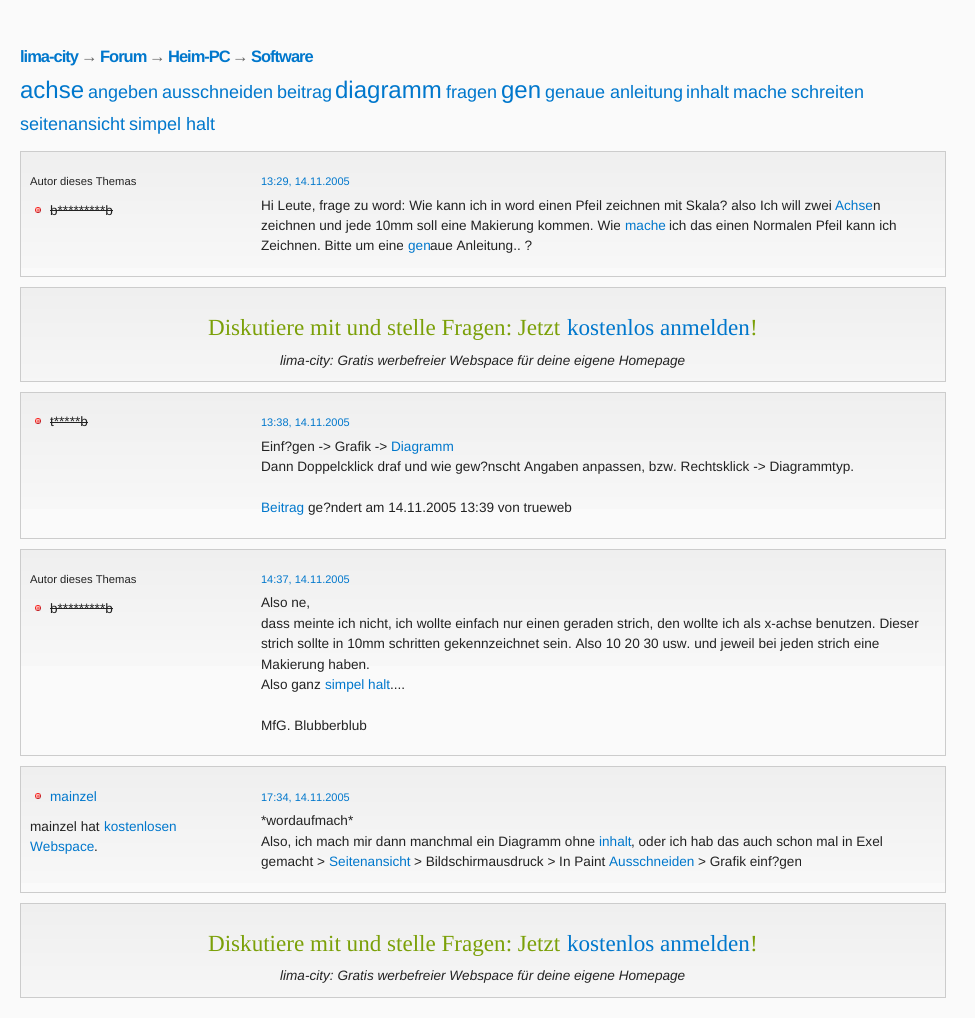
#include <cairo.h>
#include <math.h>
#include <stddef.h>


static void set_color(cairo_t *cr, unsigned color) {
    cairo_set_source_rgb(cr, (color >> 16) / 255.0, (color >> 8 & 255) / 255.0, (color & 255) / 255.0);
}

static void draw_text(cairo_t *cr, double x, double y, const char *s, const char *family, double size, int italic, int bold, unsigned color) {
    cairo_select_font_face(cr, family, italic ? CAIRO_FONT_SLANT_ITALIC : CAIRO_FONT_SLANT_NORMAL,
        bold ? CAIRO_FONT_WEIGHT_BOLD : CAIRO_FONT_WEIGHT_NORMAL);
    cairo_set_font_size(cr, size);
    set_color(cr, color);
    cairo_move_to(cr, x, y);
    cairo_show_text(cr, s);
}

static void draw_spaced(cairo_t *cr, double x, double y, const char *s, double letter, double word) {
    cairo_move_to(cr, x, y);
    while (*s) {
        char ch[5] = {0};
        int n = 0;
        do ch[n++] = *s++; while ((*s & 0xC0) == 0x80);
        cairo_show_text(cr, ch);
        cairo_rel_move_to(cr, letter + word * (*ch == ' '), 0);
    }
}

static void fill_rect(cairo_t *cr, double x, double y, double w, double h, unsigned color) {
    set_color(cr, color);
    cairo_rectangle(cr, x, y, w, h);
    cairo_fill(cr);
}

static void draw_image(cairo_t *cr, const char *path, double x, double y, double w, double h) {
    cairo_surface_t *image = cairo_image_surface_create_from_png(path);
    cairo_save(cr);
    cairo_set_source_surface(cr, image, x, y);
    cairo_rectangle(cr, x, y, w, h);
    cairo_fill(cr);
    cairo_restore(cr);
    cairo_surface_destroy(image);
}

int main(void) {
    cairo_surface_t *surface = cairo_image_surface_create(CAIRO_FORMAT_RGB24, 975, 1018);
    cairo_t *cr = cairo_create(surface);
    cairo_font_options_t *options = cairo_font_options_create();
    cairo_font_options_set_hint_metrics(options, CAIRO_HINT_METRICS_OFF);
    cairo_font_options_set_hint_style(options, CAIRO_HINT_STYLE_NONE);
    cairo_set_font_options(cr, options);
    cairo_set_miter_limit(cr, 4);
    cairo_pattern_t *gradient;
    set_color(cr, 0xFAFAFA);
    cairo_paint(cr);
    cairo_select_font_face(cr, "Liberation Sans", CAIRO_FONT_SLANT_NORMAL, CAIRO_FONT_WEIGHT_BOLD);
    cairo_set_font_size(cr, 16.5);
    set_color(cr, 0x0077CC);
    draw_spaced(cr, 20, 62, "lima-city", -1, 0);
    set_color(cr, 0x666666);
    draw_spaced(cr, 81, 62, "→", -1, 0);
    set_color(cr, 0x0077CC);
    draw_spaced(cr, 100, 62, "Forum", -1, 0);
    set_color(cr, 0x666666);
    draw_spaced(cr, 149, 62, "→", -1, 0);
    set_color(cr, 0x0077CC);
    draw_spaced(cr, 168, 62, "Heim-PC", -1, 0);
    set_color(cr, 0x666666);
    draw_spaced(cr, 232, 62, "→", -1, 0);
    set_color(cr, 0x0077CC);
    draw_spaced(cr, 251, 62, "Software", -1, 0);
    draw_text(cr, 20, 98, "achse", "Liberation Sans", 24, 0, 0, 0x0077CC);
    draw_text(cr, 88, 98, "angeben", "Liberation Sans", 18, 0, 0, 0x0077CC);
    draw_text(cr, 162, 98, "ausschneiden", "Liberation Sans", 18, 0, 0, 0x0077CC);
    draw_text(cr, 277, 98, "beitrag", "Liberation Sans", 18, 0, 0, 0x0077CC);
    draw_text(cr, 335, 98, "diagramm", "Liberation Sans", 24, 0, 0, 0x0077CC);
    draw_text(cr, 446, 98, "fragen", "Liberation Sans", 18, 0, 0, 0x0077CC);
    draw_text(cr, 501, 98, "gen", "Liberation Sans", 24, 0, 0, 0x0077CC);
    draw_text(cr, 545, 98, "genaue anleitung", "Liberation Sans", 18, 0, 0, 0x0077CC);
    draw_text(cr, 686, 98, "inhalt", "Liberation Sans", 18, 0, 0, 0x0077CC);
    draw_text(cr, 733, 98, "mache", "Liberation Sans", 18, 0, 0, 0x0077CC);
    draw_text(cr, 791, 98, "schreiten", "Liberation Sans", 18, 0, 0, 0x0077CC);
    draw_text(cr, 20, 130, "seitenansicht", "Liberation Sans", 18, 0, 0, 0x0077CC);
    draw_text(cr, 129, 130, "simpel halt", "Liberation Sans", 18, 0, 0, 0x0077CC);
    gradient = cairo_pattern_create_linear(483, 152, 483, 302);
    cairo_pattern_add_color_stop_rgba(gradient, 0, 0.937, 0.937, 0.937, 1);
    cairo_pattern_add_color_stop_rgba(gradient, 1, 0.98, 0.98, 0.98, 1);
    cairo_set_source(cr, gradient);
    cairo_pattern_destroy(gradient);
    cairo_rectangle(cr, 21, 152, 924, 116);
    cairo_fill(cr);
    cairo_rectangle(cr, 20.5, 151.5, 925, 125);
    set_color(cr, 0xCCCCCC);
    cairo_set_line_width(cr, 1);
    cairo_stroke(cr);
    draw_text(cr, 30, 185, "Autor dieses Themas", "Liberation Sans", 11.25, 0, 0, 0x222222);
    draw_image(cr, "assets/img1.png", 35, 207, 6, 6);
    draw_text(cr, 50, 215, "b*********b", "Liberation Sans", 13.6, 0, 0, 0x222222);
    fill_rect(cr, 50, 210, 63, 1, 0x222222);
    draw_text(cr, 261, 185, "13:29, 14.11.2005", "Liberation Sans", 11, 0, 0, 0x0077CC);
    draw_text(cr, 261, 210, "Hi Leute, frage zu word: Wie kann ich in word einen Pfeil zeichnen mit Skala? also Ich will zwei", "Liberation Sans", 13.6, 0, 0, 0x222222);
    draw_text(cr, 835, 210, "Achse", "Liberation Sans", 13.6, 0, 0, 0x0077CC);
    draw_text(cr, 873, 210, "n", "Liberation Sans", 13.6, 0, 0, 0x222222);
    draw_text(cr, 261, 230, "zeichnen und jede 10mm soll eine Makierung kommen. Wie", "Liberation Sans", 13.6, 0, 0, 0x222222);
    draw_text(cr, 625, 230, "mache", "Liberation Sans", 13.6, 0, 0, 0x0077CC);
    draw_text(cr, 669, 230, "ich das einen Normalen Pfeil kann ich", "Liberation Sans", 13.6, 0, 0, 0x222222);
    draw_text(cr, 261, 250, "Zeichnen. Bitte um eine", "Liberation Sans", 13.6, 0, 0, 0x222222);
    draw_text(cr, 408, 250, "gen", "Liberation Sans", 13.6, 0, 0, 0x0077CC);
    draw_text(cr, 430, 250, "aue Anleitung.. ?", "Liberation Sans", 13.6, 0, 0, 0x222222);
    gradient = cairo_pattern_create_linear(483, 288, 483, 438);
    cairo_pattern_add_color_stop_rgba(gradient, 0, 0.937, 0.937, 0.937, 1);
    cairo_pattern_add_color_stop_rgba(gradient, 1, 0.98, 0.98, 0.98, 1);
    cairo_set_source(cr, gradient);
    cairo_pattern_destroy(gradient);
    cairo_rectangle(cr, 21, 288, 924, 93);
    cairo_fill(cr);
    cairo_rectangle(cr, 20.5, 287.5, 925, 94);
    set_color(cr, 0xCCCCCC);
    cairo_stroke(cr);
    draw_text(cr, 208, 335, "Diskutiere mit und stelle Fragen: Jetzt", "Liberation Serif", 23.1, 0, 0, 0x7BA008);
    draw_text(cr, 567, 335, "kostenlos anmelden", "Liberation Serif", 23.1, 0, 0, 0x0077CC);
    draw_text(cr, 750, 335, "!", "Liberation Serif", 23.1, 0, 0, 0x7BA008);
    draw_text(cr, 280, 365, "lima-city: Gratis werbefreier Webspace für deine eigene Homepage", "Liberation Sans", 13.6, 1, 0, 0x222222);
    gradient = cairo_pattern_create_linear(483, 393, 483, 543);
    cairo_pattern_add_color_stop_rgba(gradient, 0, 0.937, 0.937, 0.937, 1);
    cairo_pattern_add_color_stop_rgba(gradient, 1, 0.98, 0.98, 0.98, 1);
    cairo_set_source(cr, gradient);
    cairo_pattern_destroy(gradient);
    cairo_rectangle(cr, 21, 393, 924, 116);
    cairo_fill(cr);
    cairo_rectangle(cr, 20.5, 392.5, 925, 146);
    set_color(cr, 0xCCCCCC);
    cairo_stroke(cr);
    draw_image(cr, "assets/img2.png", 35, 418, 6, 6);
    draw_text(cr, 50, 426, "t*****b", "Liberation Sans", 13.6, 0, 0, 0x222222);
    fill_rect(cr, 50, 422, 38, 1, 0x222222);
    draw_text(cr, 261, 426, "13:38, 14.11.2005", "Liberation Sans", 11, 0, 0, 0x0077CC);
    draw_text(cr, 261, 451, "Einf?gen -> Grafik ->", "Liberation Sans", 13.6, 0, 0, 0x222222);
    draw_text(cr, 391, 451, "Diagramm", "Liberation Sans", 13.6, 0, 0, 0x0077CC);
    draw_text(cr, 261, 471, "Dann Doppelcklick draf und wie gew?nscht Angaben anpassen, bzw. Rechtsklick -> Diagrammtyp.", "Liberation Sans", 13.6, 0, 0, 0x222222);
    draw_text(cr, 261, 512, "Beitrag", "Liberation Sans", 13.6, 0, 0, 0x0077CC);
    draw_text(cr, 308, 512, "ge?ndert am 14.11.2005 13:39 von trueweb", "Liberation Sans", 13.6, 0, 0, 0x222222);
    gradient = cairo_pattern_create_linear(483, 550, 483, 755);
    cairo_pattern_add_color_stop_rgba(gradient, 0, 0.937, 0.937, 0.937, 1);
    cairo_pattern_add_color_stop_rgba(gradient, 0.73, 0.98, 0.98, 0.98, 1);
    cairo_set_source(cr, gradient);
    cairo_pattern_destroy(gradient);
    cairo_rectangle(cr, 21, 550, 924, 116);
    cairo_fill(cr);
    cairo_rectangle(cr, 20.5, 549.5, 925, 206);
    set_color(cr, 0xCCCCCC);
    cairo_stroke(cr);
    draw_text(cr, 30, 583, "Autor dieses Themas", "Liberation Sans", 11.25, 0, 0, 0x222222);
    draw_image(cr, "assets/img1.png", 35, 605, 6, 6);
    draw_text(cr, 50, 613, "b*********b", "Liberation Sans", 13.6, 0, 0, 0x222222);
    fill_rect(cr, 50, 608, 63, 1, 0x222222);
    draw_text(cr, 261, 583, "14:37, 14.11.2005", "Liberation Sans", 11, 0, 0, 0x0077CC);
    draw_text(cr, 261, 607, "Also ne,", "Liberation Sans", 13.6, 0, 0, 0x222222);
    draw_text(cr, 261, 628, "dass meinte ich nicht, ich wollte einfach nur einen geraden strich, den wollte ich als x-achse benutzen. Dieser", "Liberation Sans", 13.6, 0, 0, 0x222222);
    draw_text(cr, 261, 648, "strich sollte in 10mm schritten gekennzeichnet sein. Also 10 20 30 usw. und jeweil bei jeden strich eine", "Liberation Sans", 13.6, 0, 0, 0x222222);
    draw_text(cr, 261, 669, "Makierung haben.", "Liberation Sans", 13.6, 0, 0, 0x222222);
    draw_text(cr, 261, 689, "Also ganz", "Liberation Sans", 13.6, 0, 0, 0x222222);
    draw_text(cr, 325, 689, "simpel halt", "Liberation Sans", 13.6, 0, 0, 0x0077CC);
    draw_text(cr, 390, 689, "....", "Liberation Sans", 13.6, 0, 0, 0x222222);
    draw_text(cr, 261, 730, "MfG. Blubberblub", "Liberation Sans", 13.6, 0, 0, 0x222222);
    gradient = cairo_pattern_create_linear(483, 767, 483, 917);
    cairo_pattern_add_color_stop_rgba(gradient, 0, 0.937, 0.937, 0.937, 1);
    cairo_pattern_add_color_stop_rgba(gradient, 1, 0.98, 0.98, 0.98, 1);
    cairo_set_source(cr, gradient);
    cairo_pattern_destroy(gradient);
    cairo_rectangle(cr, 21, 767, 924, 116);
    cairo_fill(cr);
    cairo_rectangle(cr, 20.5, 766.5, 925, 126);
    set_color(cr, 0xCCCCCC);
    cairo_stroke(cr);
    draw_image(cr, "assets/img2.png", 35, 793, 6, 6);
    draw_text(cr, 50, 801, "mainzel", "Liberation Sans", 13.6, 0, 0, 0x0077CC);
    draw_text(cr, 30, 831, "mainzel hat", "Liberation Sans", 13.6, 0, 0, 0x222222);
    draw_text(cr, 104, 831, "kostenlosen", "Liberation Sans", 13.6, 0, 0, 0x0077CC);
    draw_text(cr, 30, 851, "Webspace", "Liberation Sans", 13.6, 0, 0, 0x0077CC);
    draw_text(cr, 94, 851, ".", "Liberation Sans", 13.6, 0, 0, 0x222222);
    draw_text(cr, 261, 801, "17:34, 14.11.2005", "Liberation Sans", 11, 0, 0, 0x0077CC);
    draw_text(cr, 261, 825, "*wordaufmach*", "Liberation Sans", 13.6, 0, 0, 0x222222);
    draw_text(cr, 261, 846, "Also, ich mach mir dann manchmal ein Diagramm ohne", "Liberation Sans", 13.6, 0, 0, 0x222222);
    draw_text(cr, 599, 846, "inhalt", "Liberation Sans", 13.6, 0, 0, 0x0077CC);
    draw_text(cr, 631, 846, ", oder ich hab das auch schon mal in Exel", "Liberation Sans", 13.6, 0, 0, 0x222222);
    draw_text(cr, 261, 866, "gemacht >", "Liberation Sans", 13.6, 0, 0, 0x222222);
    draw_text(cr, 329, 866, "Seitenansicht", "Liberation Sans", 13.6, 0, 0, 0x0077CC);
    draw_text(cr, 414, 866, "> Bildschirmausdruck > In Paint", "Liberation Sans", 13.6, 0, 0, 0x222222);
    draw_text(cr, 609, 866, "Ausschneiden", "Liberation Sans", 13.6, 0, 0, 0x0077CC);
    draw_text(cr, 698, 866, "> Grafik einf?gen", "Liberation Sans", 13.6, 0, 0, 0x222222);
    gradient = cairo_pattern_create_linear(483, 904, 483, 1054);
    cairo_pattern_add_color_stop_rgba(gradient, 0, 0.937, 0.937, 0.937, 1);
    cairo_pattern_add_color_stop_rgba(gradient, 1, 0.98, 0.98, 0.98, 1);
    cairo_set_source(cr, gradient);
    cairo_pattern_destroy(gradient);
    cairo_rectangle(cr, 21, 904, 924, 93);
    cairo_fill(cr);
    cairo_rectangle(cr, 20.5, 903.5, 925, 94);
    set_color(cr, 0xCCCCCC);
    cairo_stroke(cr);
    draw_text(cr, 208, 951, "Diskutiere mit und stelle Fragen: Jetzt", "Liberation Serif", 23.1, 0, 0, 0x7BA008);
    draw_text(cr, 567, 951, "kostenlos anmelden", "Liberation Serif", 23.1, 0, 0, 0x0077CC);
    draw_text(cr, 750, 951, "!", "Liberation Serif", 23.1, 0, 0, 0x7BA008);
    draw_text(cr, 280, 980, "lima-city: Gratis werbefreier Webspace für deine eigene Homepage", "Liberation Sans", 13.6, 1, 0, 0x222222);
    cairo_surface_write_to_png(surface, "output.png");
    cairo_font_options_destroy(options);
    cairo_destroy(cr);
    cairo_surface_destroy(surface);
    return 0;
}
